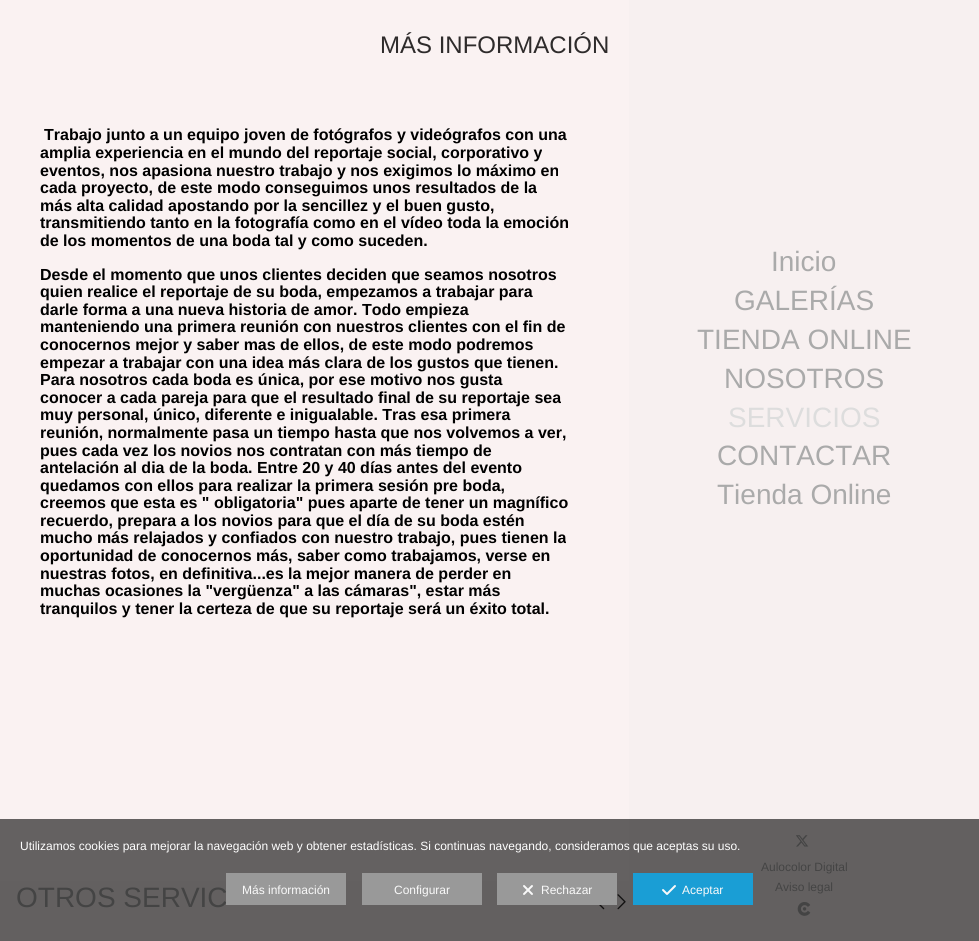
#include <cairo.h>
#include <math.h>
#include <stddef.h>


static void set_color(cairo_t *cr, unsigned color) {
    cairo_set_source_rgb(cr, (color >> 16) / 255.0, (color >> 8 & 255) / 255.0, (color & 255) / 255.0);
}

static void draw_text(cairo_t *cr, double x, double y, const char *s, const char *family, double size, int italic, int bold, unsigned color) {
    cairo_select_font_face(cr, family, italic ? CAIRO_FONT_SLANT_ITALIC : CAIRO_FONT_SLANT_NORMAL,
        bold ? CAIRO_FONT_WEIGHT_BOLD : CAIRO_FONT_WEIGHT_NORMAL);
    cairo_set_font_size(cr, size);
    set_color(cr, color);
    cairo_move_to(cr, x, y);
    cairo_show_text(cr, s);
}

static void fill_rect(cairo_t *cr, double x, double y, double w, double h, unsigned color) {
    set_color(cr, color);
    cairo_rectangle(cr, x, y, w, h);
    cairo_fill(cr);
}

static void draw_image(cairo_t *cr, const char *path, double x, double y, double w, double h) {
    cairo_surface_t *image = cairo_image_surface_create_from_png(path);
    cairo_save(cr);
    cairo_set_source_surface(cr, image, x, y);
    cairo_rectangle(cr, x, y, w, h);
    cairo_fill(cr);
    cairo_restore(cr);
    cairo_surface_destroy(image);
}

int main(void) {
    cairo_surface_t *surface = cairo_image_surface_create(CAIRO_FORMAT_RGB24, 979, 941);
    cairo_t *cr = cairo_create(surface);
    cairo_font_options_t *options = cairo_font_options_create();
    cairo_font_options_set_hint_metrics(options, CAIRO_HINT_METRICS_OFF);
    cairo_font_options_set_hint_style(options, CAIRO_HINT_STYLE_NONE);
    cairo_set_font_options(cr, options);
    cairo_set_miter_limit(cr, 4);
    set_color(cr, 0xFAF2F2);
    cairo_paint(cr);
    fill_rect(cr, 0, 819, 629, 62, 0x646161);
    draw_text(cr, 380, 53, "MÁS INFORMACIÓN", "Liberation Sans", 24, 0, 0, 0x2E2B2B);
    draw_text(cr, 44, 140, "Trabajo junto a un equipo joven de fotógrafos y videógrafos con una", "Liberation Sans", 16, 0, 1, 0x000000);
    draw_text(cr, 40, 158, "amplia experiencia en el mundo del reportaje social, corporativo y", "Liberation Sans", 16, 0, 1, 0x000000);
    draw_text(cr, 40, 176, "eventos, nos apasiona nuestro trabajo y nos exigimos lo máximo en", "Liberation Sans", 16, 0, 1, 0x000000);
    draw_text(cr, 40, 193, "cada proyecto, de este modo conseguimos unos resultados de la", "Liberation Sans", 16, 0, 1, 0x000000);
    draw_text(cr, 40, 211, "más alta calidad apostando por la sencillez y el buen gusto,", "Liberation Sans", 16, 0, 1, 0x000000);
    draw_text(cr, 40, 228, "transmitiendo tanto en la fotografía como en el vídeo toda la emoción", "Liberation Sans", 16, 0, 1, 0x000000);
    draw_text(cr, 40, 246, "de los momentos de una boda tal y como suceden.", "Liberation Sans", 16, 0, 1, 0x000000);
    draw_text(cr, 40, 280, "Desde el momento que unos clientes deciden que seamos nosotros", "Liberation Sans", 16, 0, 1, 0x000000);
    draw_text(cr, 40, 297, "quien realice el reportaje de su boda, empezamos a trabajar para", "Liberation Sans", 16, 0, 1, 0x000000);
    draw_text(cr, 40, 315, "darle forma a una nueva historia de amor. Todo empieza", "Liberation Sans", 16, 0, 1, 0x000000);
    draw_text(cr, 40, 332, "manteniendo una primera reunión con nuestros clientes con el fin de", "Liberation Sans", 16, 0, 1, 0x000000);
    draw_text(cr, 40, 350, "conocernos mejor y saber mas de ellos, de este modo podremos", "Liberation Sans", 16, 0, 1, 0x000000);
    draw_text(cr, 40, 368, "empezar a trabajar con una idea más clara de los gustos que tienen.", "Liberation Sans", 16, 0, 1, 0x000000);
    draw_text(cr, 40, 385, "Para nosotros cada boda es única, por ese motivo nos gusta", "Liberation Sans", 16, 0, 1, 0x000000);
    draw_text(cr, 40, 403, "conocer a cada pareja para que el resultado final de su reportaje sea", "Liberation Sans", 16, 0, 1, 0x000000);
    draw_text(cr, 40, 420, "muy personal, único, diferente e inigualable. Tras esa primera", "Liberation Sans", 16, 0, 1, 0x000000);
    draw_text(cr, 40, 438, "reunión, normalmente pasa un tiempo hasta que nos volvemos a ver,", "Liberation Sans", 16, 0, 1, 0x000000);
    draw_text(cr, 40, 456, "pues cada vez los novios nos contratan con más tiempo de", "Liberation Sans", 16, 0, 1, 0x000000);
    draw_text(cr, 40, 473, "antelación al dia de la boda. Entre 20 y 40 días antes del evento", "Liberation Sans", 16, 0, 1, 0x000000);
    draw_text(cr, 40, 491, "quedamos con ellos para realizar la primera sesión pre boda,", "Liberation Sans", 16, 0, 1, 0x000000);
    draw_text(cr, 40, 508, "creemos que esta es \" obligatoria\" pues aparte de tener un magnífico", "Liberation Sans", 16, 0, 1, 0x000000);
    draw_text(cr, 40, 526, "recuerdo, prepara a los novios para que el día de su boda estén", "Liberation Sans", 16, 0, 1, 0x000000);
    draw_text(cr, 40, 543, "mucho más relajados y confiados con nuestro trabajo, pues tienen la", "Liberation Sans", 16, 0, 1, 0x000000);
    draw_text(cr, 40, 561, "oportunidad de conocernos más, saber como trabajamos, verse en", "Liberation Sans", 16, 0, 1, 0x000000);
    draw_text(cr, 40, 579, "nuestras fotos, en definitiva...es la mejor manera de perder en", "Liberation Sans", 16, 0, 1, 0x000000);
    draw_text(cr, 40, 596, "muchas ocasiones la \"vergüenza\" a las cámaras\", estar más", "Liberation Sans", 16, 0, 1, 0x000000);
    draw_text(cr, 40, 614, "tranquilos y tener la certeza de que su reportaje será un éxito total.", "Liberation Sans", 16, 0, 1, 0x000000);
    fill_rect(cr, 629, 819, 350, 122, 0x636060);
    draw_image(cr, "assets/img1.png", 796, 835, 13, 12);
    draw_text(cr, 761, 871, "Aulocolor Digital", "Liberation Sans", 12, 0, 0, 0x444444);
    draw_text(cr, 775, 891, "Aviso legal", "Liberation Sans", 12, 0, 0, 0x444444);
    draw_image(cr, "assets/img2.png", 797, 902, 14, 14);
    fill_rect(cr, 0, 881, 629, 60, 0x636060);
    draw_text(cr, 16, 907, "OTROS SERVIC", "Liberation Sans", 28, 0, 0, 0x444444);
    draw_image(cr, "assets/img3.png", 599, 905, 6, 5);
    draw_image(cr, "assets/img4.png", 617, 894, 9, 16);
    fill_rect(cr, 629, 0, 350, 819, 0xF7F0F0);
    draw_text(cr, 771, 271, "Inicio", "Liberation Sans", 28, 0, 0, 0xAAAAAA);
    draw_text(cr, 734, 310, "GALERÍAS", "Liberation Sans", 28, 0, 0, 0xAAAAAA);
    draw_text(cr, 697, 349, "TIENDA ONLINE", "Liberation Sans", 28, 0, 0, 0xAAAAAA);
    draw_text(cr, 724, 388, "NOSOTROS", "Liberation Sans", 28, 0, 0, 0xAAAAAA);
    draw_text(cr, 728, 427, "SERVICIOS", "Liberation Sans", 28, 0, 0, 0xDDDDDD);
    draw_text(cr, 717, 465, "CONTACTAR", "Liberation Sans", 28, 0, 0, 0xAAAAAA);
    draw_text(cr, 717, 504, "Tienda Online", "Liberation Sans", 28, 0, 0, 0xAAAAAA);
    draw_text(cr, 20, 850, "Utilizamos cookies para mejorar la navegación web y obtener estadísticas. Si continuas navegando, consideramos que aceptas su uso.", "Liberation Sans", 12, 0, 0, 0xFFFFFF);
    fill_rect(cr, 226, 873, 120, 32, 0x999999);
    draw_text(cr, 242, 894, "Más información", "Liberation Sans", 12, 0, 0, 0xF9F9F9);
    fill_rect(cr, 362, 873, 120, 32, 0x999999);
    draw_text(cr, 394, 894, "Configurar", "Liberation Sans", 12, 0, 0, 0xF9F9F9);
    fill_rect(cr, 497, 873, 120, 32, 0x999999);
    draw_image(cr, "assets/img5.png", 523, 885, 10, 10);
    draw_text(cr, 541, 894, "Rechazar", "Liberation Sans", 12, 0, 0, 0xF9F9F9);
    fill_rect(cr, 633, 873, 120, 32, 0x1A9ED5);
    draw_image(cr, "assets/img6.png", 662, 885, 14, 10);
    draw_text(cr, 682, 894, "Aceptar", "Liberation Sans", 12, 0, 0, 0xF9F9F9);
    cairo_surface_write_to_png(surface, "output.png");
    cairo_font_options_destroy(options);
    cairo_destroy(cr);
    cairo_surface_destroy(surface);
    return 0;
}
